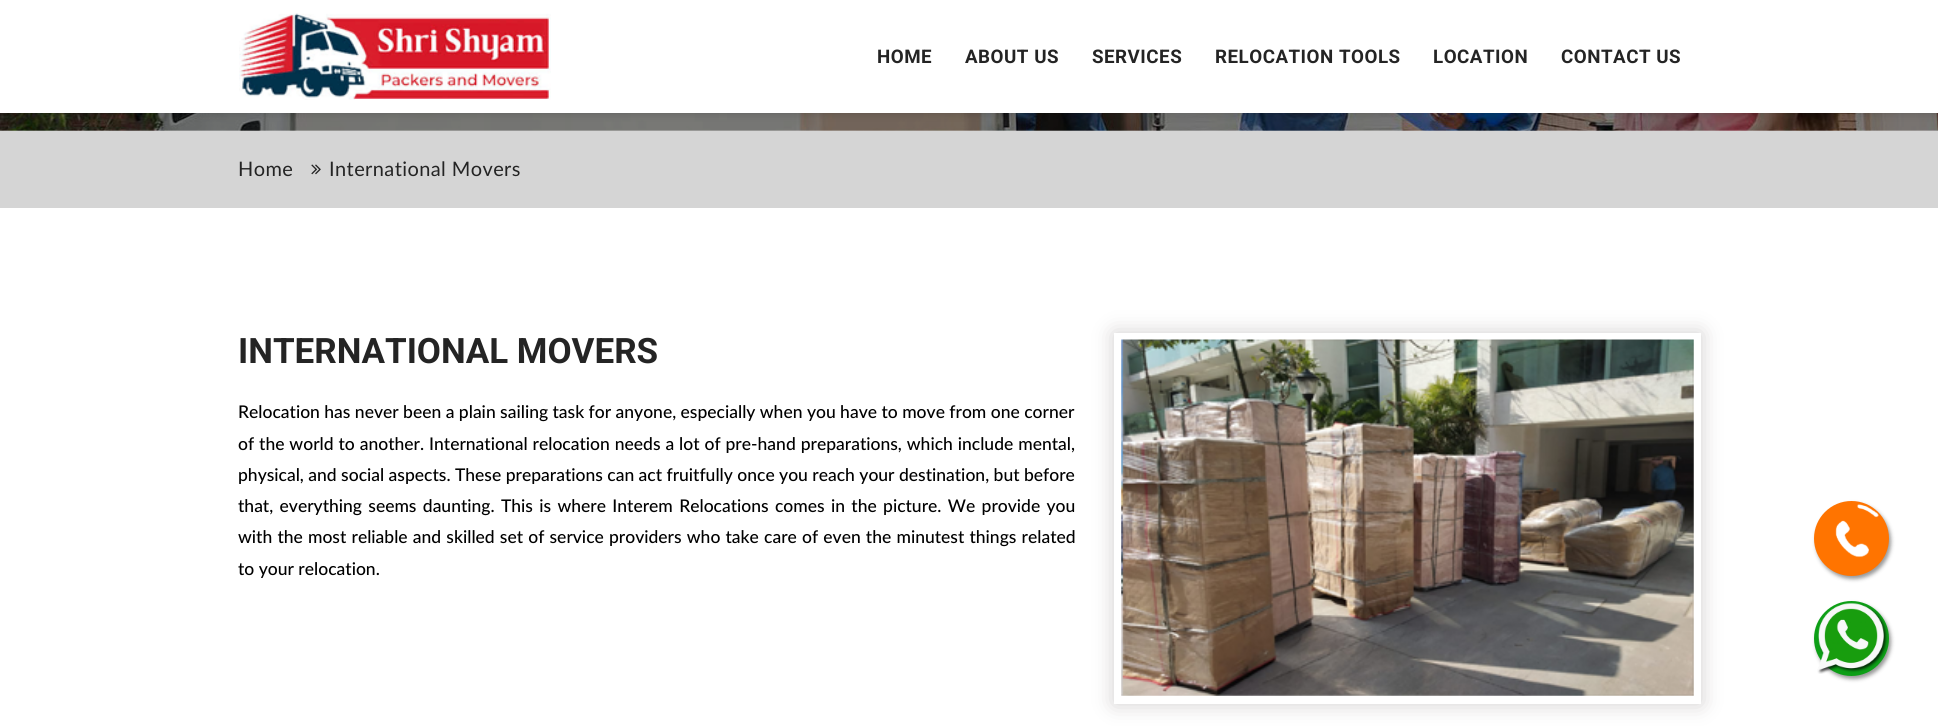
#include <cairo.h>
#include <math.h>
#include <stddef.h>


static void set_color(cairo_t *cr, unsigned color) {
    cairo_set_source_rgb(cr, (color >> 16) / 255.0, (color >> 8 & 255) / 255.0, (color & 255) / 255.0);
}

static void draw_text(cairo_t *cr, double x, double y, const char *s, const char *family, double size, int italic, int bold, unsigned color) {
    cairo_select_font_face(cr, family, italic ? CAIRO_FONT_SLANT_ITALIC : CAIRO_FONT_SLANT_NORMAL,
        bold ? CAIRO_FONT_WEIGHT_BOLD : CAIRO_FONT_WEIGHT_NORMAL);
    cairo_set_font_size(cr, size);
    set_color(cr, color);
    cairo_move_to(cr, x, y);
    cairo_show_text(cr, s);
}

static void draw_spaced(cairo_t *cr, double x, double y, const char *s, double letter, double word) {
    cairo_move_to(cr, x, y);
    while (*s) {
        char ch[5] = {0};
        int n = 0;
        do ch[n++] = *s++; while ((*s & 0xC0) == 0x80);
        cairo_show_text(cr, ch);
        cairo_rel_move_to(cr, letter + word * (*ch == ' '), 0);
    }
}

static void fill_rect(cairo_t *cr, double x, double y, double w, double h, unsigned color) {
    set_color(cr, color);
    cairo_rectangle(cr, x, y, w, h);
    cairo_fill(cr);
}

static void rounded_rect(cairo_t *cr, double x, double y, double w, double h, double r) {
    cairo_new_sub_path(cr);
    cairo_arc(cr, x + w - r, y + h - r, r, 0, M_PI / 2);
    cairo_arc(cr, x + r, y + h - r, r, M_PI / 2, M_PI);
    cairo_arc(cr, x + r, y + r, r, M_PI, 1.5 * M_PI);
    cairo_arc(cr, x + w - r, y + r, r, 1.5 * M_PI, 2 * M_PI);
    cairo_close_path(cr);
}

static void draw_shadow(cairo_t *cr, double x, double y, double w, double h, double r, double blur, double alpha) {
    cairo_push_group_with_content(cr, CAIRO_CONTENT_ALPHA);
    cairo_set_operator(cr, CAIRO_OPERATOR_SOURCE);
    for (int i = 15; i >= -15 && fmin(w, h) + blur * i / 3 > 0; i -= 2) {
        double e = blur * i / 6;
        cairo_set_source_rgba(cr, 0, 0, 0, alpha * erfc((i - 1) / 8.5) / 2);
        rounded_rect(cr, x - e, y - e, w + 2 * e, h + 2 * e, fmax(0, fmin(r + e + blur * .6, fmin(w, h) / 2 + e)));
        cairo_fill(cr);
    }
    cairo_pattern_t *soft = cairo_pop_group(cr);
    cairo_mask(cr, soft);
    cairo_pattern_destroy(soft);
}

static void draw_image(cairo_t *cr, const char *path, double x, double y, double w, double h) {
    cairo_surface_t *image = cairo_image_surface_create_from_png(path);
    cairo_save(cr);
    cairo_set_source_surface(cr, image, x, y);
    cairo_rectangle(cr, x, y, w, h);
    cairo_fill(cr);
    cairo_restore(cr);
    cairo_surface_destroy(image);
}

int main(void) {
    cairo_surface_t *surface = cairo_image_surface_create(CAIRO_FORMAT_RGB24, 1938, 726);
    cairo_t *cr = cairo_create(surface);
    cairo_font_options_t *options = cairo_font_options_create();
    cairo_font_options_set_hint_metrics(options, CAIRO_HINT_METRICS_OFF);
    cairo_font_options_set_hint_style(options, CAIRO_HINT_STYLE_NONE);
    cairo_set_font_options(cr, options);
    cairo_set_miter_limit(cr, 4);
    set_color(cr, 0xFFFFFF);
    cairo_paint(cr);
    draw_image(cr, "assets/img2.png", 0, 113, 1938, 18);
    set_color(cr, 0x000000);
    draw_shadow(cr, 0, 0, 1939, 113, 0, 4.5, 0.2);
    fill_rect(cr, 0, 0, 1938, 113, 0xFFFFFF);
    draw_image(cr, "assets/img1.png", 239, 13, 312, 87);
    cairo_select_font_face(cr, "Roboto", CAIRO_FONT_SLANT_NORMAL, CAIRO_FONT_WEIGHT_BOLD);
    cairo_set_font_size(cr, 18.75);
    set_color(cr, 0x242424);
    draw_spaced(cr, 877, 63, "HOME", 0.5, 0);
    draw_spaced(cr, 965, 63, "ABOUT US", 0.5, 0);
    draw_spaced(cr, 1092, 63, "SERVICES", 0.5, 0);
    draw_spaced(cr, 1215, 63, "RELOCATION TOOLS", 0.5, 0);
    draw_spaced(cr, 1433, 63, "LOCATION", 0.5, 0);
    draw_spaced(cr, 1561, 63, "CONTACT US", 0.5, 0);
    fill_rect(cr, 0, 131, 1938, 77, 0xD5D5D5);
    cairo_select_font_face(cr, "Lato", CAIRO_FONT_SLANT_NORMAL, CAIRO_FONT_WEIGHT_NORMAL);
    cairo_set_font_size(cr, 20);
    set_color(cr, 0x242424);
    draw_spaced(cr, 238, 176, "Home", 0.4, 0);
    draw_image(cr, "assets/img3.png", 311, 164, 10, 11);
    draw_spaced(cr, 329, 176, "International Movers", 0.4, 0);
    draw_text(cr, 238, 363, "INTERNATIONAL MOVERS", "Roboto", 35, 0, 1, 0x242424);
    draw_text(cr, 238, 418, "Relocation has never been a plain sailing task for anyone, especially when you have to move from one corner", "Lato Medium", 17.5, 0, 0, 0x000000);
    draw_spaced(cr, 238, 450, "of the world to another. International relocation needs a lot of pre-hand preparations, which include mental,", 0, 0.5);
    draw_text(cr, 238, 481, "physical, and social aspects. These preparations can act fruitfully once you reach your destination, but before", "Lato Medium", 17.5, 0, 0, 0x000000);
    draw_spaced(cr, 238, 512, "that, everything seems daunting. This is where Interem Relocations comes in the picture. We provide you", 0, 1.9);
    draw_spaced(cr, 238, 543, "with the most reliable and skilled set of service providers who take care of even the minutest things related", 0, 0.75);
    draw_text(cr, 238, 575, "to your relocation.", "Lato Medium", 17.5, 0, 0, 0x000000);
    set_color(cr, 0xD2CFCF);
    draw_shadow(cr, 1114, 333, 587, 371, 0, 10.5, 1);
    fill_rect(cr, 1114, 333, 587, 371, 0xFFFFFF);
    draw_image(cr, "assets/img4.png", 1121, 339, 573, 357);
    set_color(cr, 0x999999);
    draw_shadow(cr, 1816, 504, 75, 75, 37.5, 2, 1);
    set_color(cr, 0xFF7400);
    cairo_arc(cr, 1851.5, 538.5, 37.5, 0, 2 * M_PI);
    cairo_fill(cr);
    draw_image(cr, "assets/img5.png", 1835, 504, 44, 54);
    set_color(cr, 0x999999);
    draw_shadow(cr, 1816, 604, 75, 75, 37.5, 2, 1);
    set_color(cr, 0x0D9F16);
    cairo_arc(cr, 1851.5, 638.5, 37.5, 0, 2 * M_PI);
    cairo_fill(cr);
    draw_image(cr, "assets/img6.png", 1817, 602, 71, 72);
    cairo_surface_write_to_png(surface, "output.png");
    cairo_font_options_destroy(options);
    cairo_destroy(cr);
    cairo_surface_destroy(surface);
    return 0;
}
